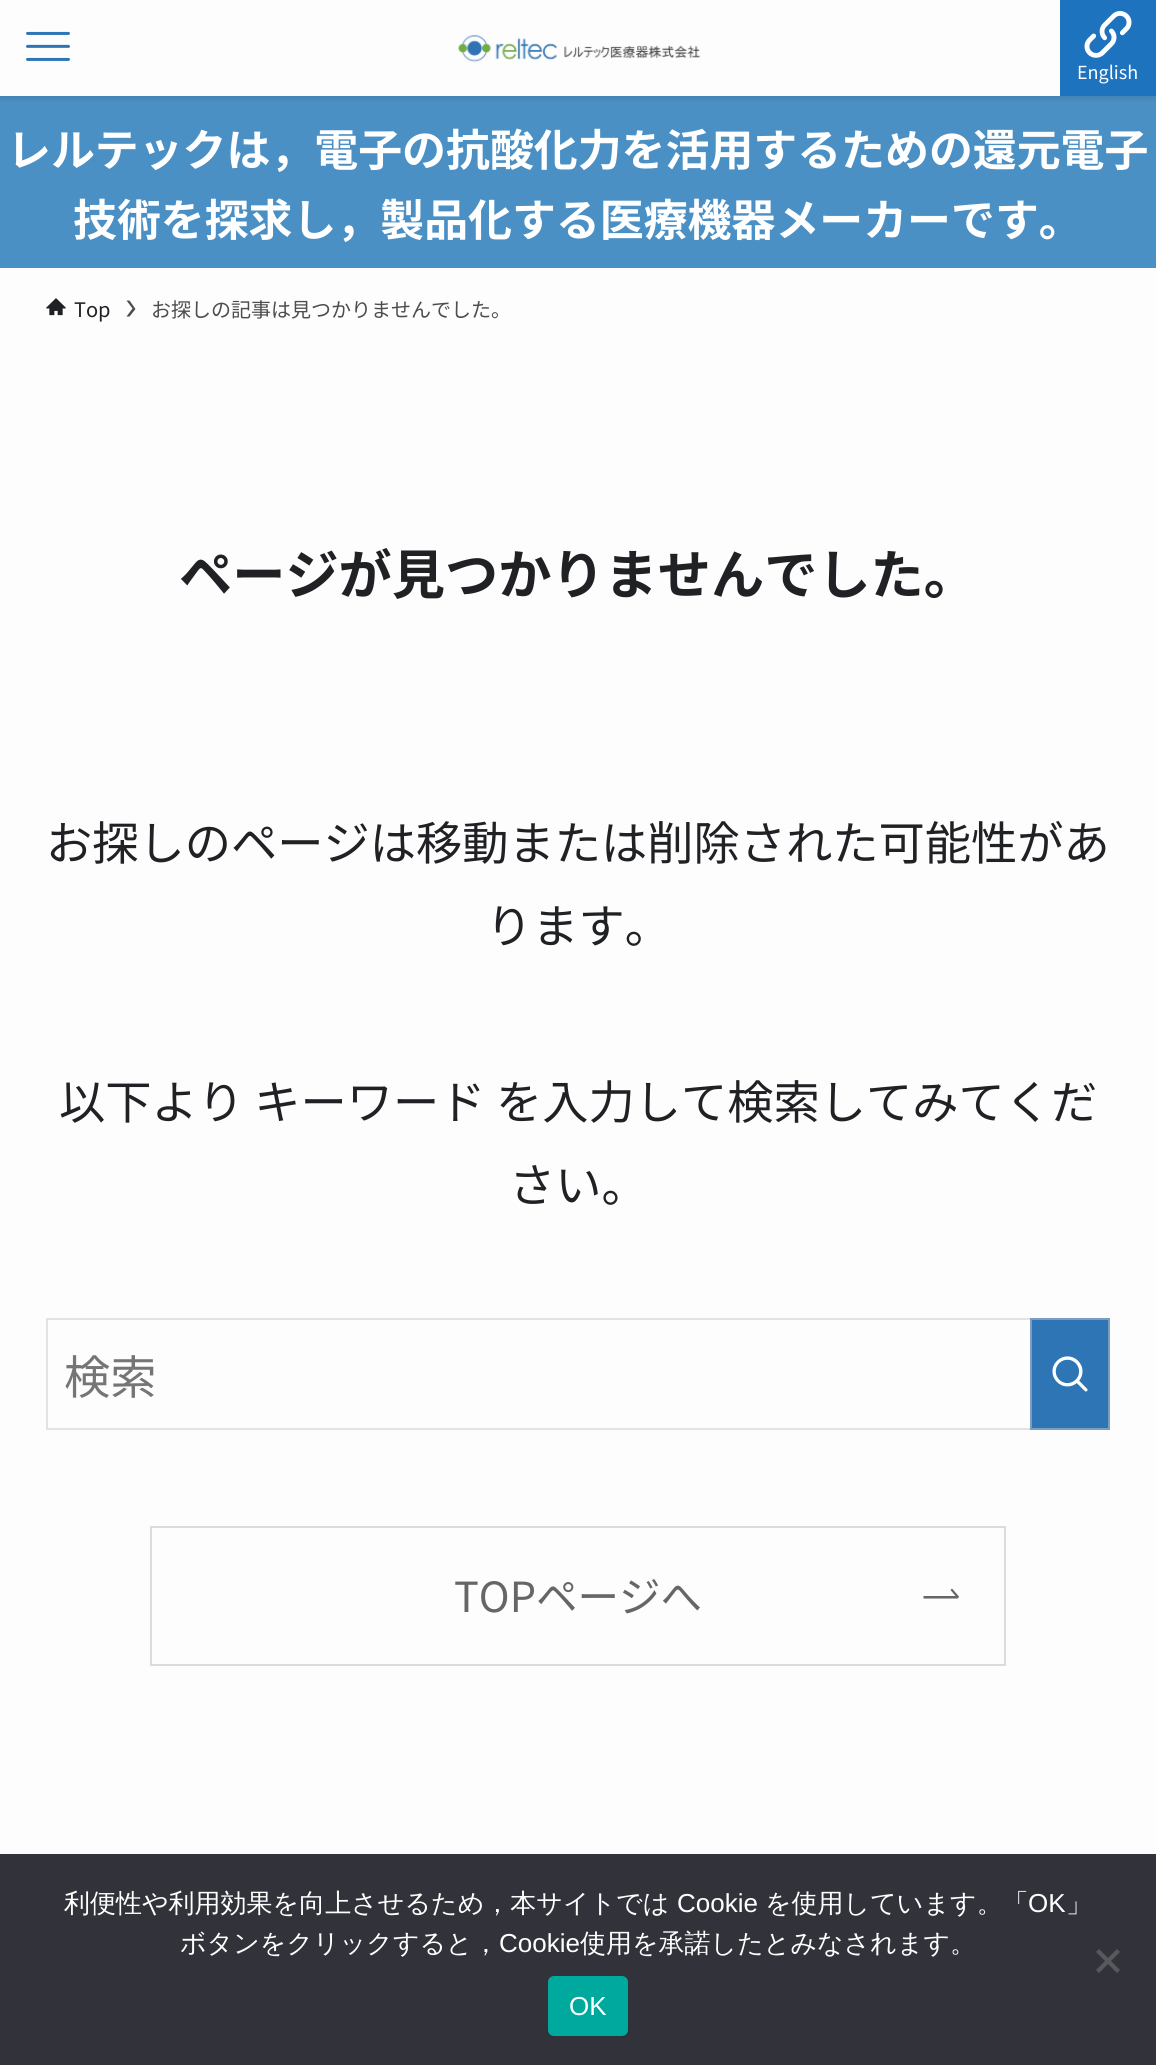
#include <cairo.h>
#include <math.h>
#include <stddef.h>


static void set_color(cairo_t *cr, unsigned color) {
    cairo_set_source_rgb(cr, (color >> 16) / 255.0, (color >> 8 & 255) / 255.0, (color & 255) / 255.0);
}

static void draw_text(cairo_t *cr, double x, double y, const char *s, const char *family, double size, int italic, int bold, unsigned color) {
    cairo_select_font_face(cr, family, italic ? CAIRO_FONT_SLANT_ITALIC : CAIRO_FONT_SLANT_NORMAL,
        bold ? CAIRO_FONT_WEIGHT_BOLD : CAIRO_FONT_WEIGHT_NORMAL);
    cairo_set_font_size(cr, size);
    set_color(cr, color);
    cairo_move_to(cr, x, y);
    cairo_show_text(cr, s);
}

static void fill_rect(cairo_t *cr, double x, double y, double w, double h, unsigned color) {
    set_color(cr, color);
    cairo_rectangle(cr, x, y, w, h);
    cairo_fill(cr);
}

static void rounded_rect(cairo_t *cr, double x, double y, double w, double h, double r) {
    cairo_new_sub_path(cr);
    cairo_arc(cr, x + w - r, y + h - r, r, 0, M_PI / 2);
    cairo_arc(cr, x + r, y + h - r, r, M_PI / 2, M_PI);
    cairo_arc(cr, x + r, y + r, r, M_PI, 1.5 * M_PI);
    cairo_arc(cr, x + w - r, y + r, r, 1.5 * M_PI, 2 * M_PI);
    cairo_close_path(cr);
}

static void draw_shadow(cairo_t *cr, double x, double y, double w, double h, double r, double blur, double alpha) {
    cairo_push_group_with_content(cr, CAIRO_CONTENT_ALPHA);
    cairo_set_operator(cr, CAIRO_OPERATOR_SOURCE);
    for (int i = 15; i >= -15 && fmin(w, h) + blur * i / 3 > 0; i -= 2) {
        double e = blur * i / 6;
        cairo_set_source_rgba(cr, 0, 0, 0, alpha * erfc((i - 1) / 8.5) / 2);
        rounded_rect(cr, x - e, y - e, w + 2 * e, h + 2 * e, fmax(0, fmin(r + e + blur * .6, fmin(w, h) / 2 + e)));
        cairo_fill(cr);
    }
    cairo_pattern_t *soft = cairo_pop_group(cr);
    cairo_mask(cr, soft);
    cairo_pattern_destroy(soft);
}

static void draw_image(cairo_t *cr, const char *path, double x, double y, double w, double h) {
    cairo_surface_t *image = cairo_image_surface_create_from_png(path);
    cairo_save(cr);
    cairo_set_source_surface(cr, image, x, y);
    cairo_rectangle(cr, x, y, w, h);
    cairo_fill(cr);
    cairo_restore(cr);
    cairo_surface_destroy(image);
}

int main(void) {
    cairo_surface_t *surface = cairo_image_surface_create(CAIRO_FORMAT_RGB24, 1156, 2065);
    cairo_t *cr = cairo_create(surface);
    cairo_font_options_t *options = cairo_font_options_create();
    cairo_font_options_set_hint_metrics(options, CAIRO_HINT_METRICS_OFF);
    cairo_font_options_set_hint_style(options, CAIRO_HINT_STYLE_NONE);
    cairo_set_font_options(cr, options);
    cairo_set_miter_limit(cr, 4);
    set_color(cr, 0xFDFDFD);
    cairo_paint(cr);
    fill_rect(cr, 0, 96, 1156, 172, 0x4A90C5);
    cairo_save(cr);
    cairo_rectangle(cr, 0, 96, 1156, 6);
    cairo_clip(cr);
    set_color(cr, 0x000000);
    draw_shadow(cr, 0, 2, 1156, 96, 0, 4, 0.12);
    cairo_restore(cr);
    draw_image(cr, "assets/img1.png", 26, 31, 44, 30);
    draw_image(cr, "assets/img2.png", 457, 34, 244, 28);
    fill_rect(cr, 1060, 0, 96, 96, 0x1E73BE);
    draw_image(cr, "assets/img3.png", 1084, 11, 48, 47);
    draw_text(cr, 1077, 79, "English", "Noto Sans JP", 18, 0, 0, 0xFFFFFF);
    draw_text(cr, 7, 166, "レルテックは，電子の抗酸化力を活用するための還元電子", "Noto Sans JP", 43.9, 0, 1, 0xFFFFFF);
    draw_text(cr, 73, 236, "技術を探求し，製品化する医療機器メーカーです。", "Noto Sans JP", 43.9, 0, 1, 0xFFFFFF);
    draw_image(cr, "assets/img4.png", 46, 298, 20, 18);
    draw_text(cr, 74, 317, "Top", "Noto Sans JP", 20, 0, 0, 0x202124);
    set_color(cr, 0x4C4D4F);
    cairo_new_path(cr);
    cairo_move_to(cr, 129.5, 300.5);
    cairo_line_to(cr, 126.5, 300.5);
    cairo_line_to(cr, 132.5, 308.5);
    cairo_line_to(cr, 126.5, 316.5);
    cairo_line_to(cr, 129.5, 316.5);
    cairo_line_to(cr, 135.5, 309);
    cairo_close_path(cr);
    cairo_fill(cr);
    draw_text(cr, 151, 317, "お探しの記事は見つかりませんでした。", "Noto Sans JP", 20, 0, 0, 0x4C4D4F);
    draw_text(cr, 179, 594, "ページが見つかりませんでした。", "Noto Sans JP", 53.2, 0, 1, 0x202124);
    draw_text(cr, 46, 860, "お探しのページは移動または削除された可能性があ", "Noto Sans JP", 46.25, 0, 0, 0x202124);
    draw_text(cr, 486, 943, "ります。", "Noto Sans JP", 46.25, 0, 0, 0x202124);
    draw_text(cr, 59, 1119, "以下より キーワード を入力して検索してみてくだ", "Noto Sans JP", 46.25, 0, 0, 0x202124);
    draw_text(cr, 509, 1202, "さい。", "Noto Sans JP", 46.25, 0, 0, 0x202124);
    cairo_rectangle(cr, 47, 1319, 1062, 110);
    set_color(cr, 0xE3E3E3);
    cairo_stroke(cr);
    draw_text(cr, 64, 1394, "検索", "Noto Sans JP", 46.25, 0, 0, 0x757575);
    set_color(cr, 0x2E75B6);
    cairo_rectangle(cr, 1031, 1319, 78, 110);
    cairo_fill_preserve(cr);
    set_color(cr, 0x7B9EBF);
    cairo_stroke(cr);
    draw_image(cr, "assets/img5.png", 1052, 1356, 36, 36);
    cairo_rectangle(cr, 151, 1527, 854, 138);
    set_color(cr, 0xDCDCDC);
    cairo_stroke(cr);
    draw_text(cr, 454, 1612, "TOPページへ", "Noto Sans JP", 41.5, 0, 0, 0x666666);
    cairo_new_path(cr);
    cairo_move_to(cr, 958, 1598.5);
    cairo_line_to(cr, 923.5, 1598.5);
    cairo_line_to(cr, 923.5, 1596);
    cairo_line_to(cr, 955.5, 1596);
    cairo_line_to(cr, 950.5, 1590);
    cairo_line_to(cr, 952, 1588.5);
    cairo_line_to(cr, 959, 1596.5);
    cairo_close_path(cr);
    cairo_fill(cr);
    fill_rect(cr, 0, 1854, 1156, 211, 0x32323A);
    draw_text(cr, 64, 1912, "利便性や利用効果を向上させるため，本サイトでは", "WenQuanYi Zen Hei Medium", 26, 0, 0, 0xFFFFFF);
    draw_text(cr, 677, 1912, "Cookie", "Liberation Sans", 26, 0, 0, 0xFFFFFF);
    draw_text(cr, 765, 1912, "を使用しています。「", "WenQuanYi Zen Hei Medium", 26, 0, 0, 0xFFFFFF);
    draw_text(cr, 1028, 1912, "OK", "Liberation Sans", 26, 0, 0, 0xFFFFFF);
    draw_text(cr, 1066, 1912, "」", "WenQuanYi Zen Hei Medium", 26, 0, 0, 0xFFFFFF);
    draw_text(cr, 180, 1952, "ボタンをクリックすると，", "WenQuanYi Zen Hei Medium", 26, 0, 0, 0xFFFFFF);
    draw_text(cr, 499, 1952, "Cookie", "Liberation Sans", 26, 0, 0, 0xFFFFFF);
    draw_text(cr, 580, 1952, "使用を承諾したとみなされます。", "WenQuanYi Zen Hei Medium", 26, 0, 0, 0xFFFFFF);
    set_color(cr, 0x59595D);
    cairo_new_path(cr);
    cairo_move_to(cr, 1117, 1949);
    cairo_line_to(cr, 1120, 1952);
    cairo_line_to(cr, 1099, 1973);
    cairo_line_to(cr, 1096, 1970);
    cairo_close_path(cr);
    cairo_fill(cr);
    cairo_new_path(cr);
    cairo_move_to(cr, 1096, 1952);
    cairo_line_to(cr, 1099, 1949);
    cairo_line_to(cr, 1120, 1970);
    cairo_line_to(cr, 1117, 1973);
    cairo_close_path(cr);
    cairo_fill(cr);
    set_color(cr, 0x00A99D);
    rounded_rect(cr, 548, 1976, 80, 60, 6);
    cairo_fill(cr);
    draw_text(cr, 569, 2015, "OK", "Liberation Sans", 26, 0, 0, 0xFFFFFF);
    cairo_surface_write_to_png(surface, "output.png");
    cairo_font_options_destroy(options);
    cairo_destroy(cr);
    cairo_surface_destroy(surface);
    return 0;
}
